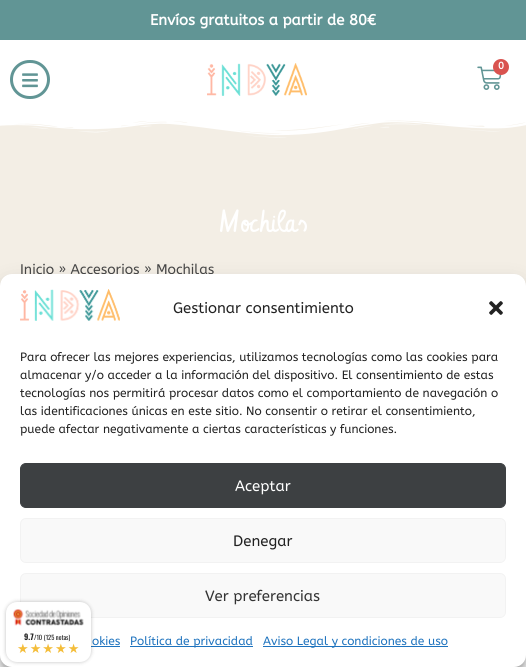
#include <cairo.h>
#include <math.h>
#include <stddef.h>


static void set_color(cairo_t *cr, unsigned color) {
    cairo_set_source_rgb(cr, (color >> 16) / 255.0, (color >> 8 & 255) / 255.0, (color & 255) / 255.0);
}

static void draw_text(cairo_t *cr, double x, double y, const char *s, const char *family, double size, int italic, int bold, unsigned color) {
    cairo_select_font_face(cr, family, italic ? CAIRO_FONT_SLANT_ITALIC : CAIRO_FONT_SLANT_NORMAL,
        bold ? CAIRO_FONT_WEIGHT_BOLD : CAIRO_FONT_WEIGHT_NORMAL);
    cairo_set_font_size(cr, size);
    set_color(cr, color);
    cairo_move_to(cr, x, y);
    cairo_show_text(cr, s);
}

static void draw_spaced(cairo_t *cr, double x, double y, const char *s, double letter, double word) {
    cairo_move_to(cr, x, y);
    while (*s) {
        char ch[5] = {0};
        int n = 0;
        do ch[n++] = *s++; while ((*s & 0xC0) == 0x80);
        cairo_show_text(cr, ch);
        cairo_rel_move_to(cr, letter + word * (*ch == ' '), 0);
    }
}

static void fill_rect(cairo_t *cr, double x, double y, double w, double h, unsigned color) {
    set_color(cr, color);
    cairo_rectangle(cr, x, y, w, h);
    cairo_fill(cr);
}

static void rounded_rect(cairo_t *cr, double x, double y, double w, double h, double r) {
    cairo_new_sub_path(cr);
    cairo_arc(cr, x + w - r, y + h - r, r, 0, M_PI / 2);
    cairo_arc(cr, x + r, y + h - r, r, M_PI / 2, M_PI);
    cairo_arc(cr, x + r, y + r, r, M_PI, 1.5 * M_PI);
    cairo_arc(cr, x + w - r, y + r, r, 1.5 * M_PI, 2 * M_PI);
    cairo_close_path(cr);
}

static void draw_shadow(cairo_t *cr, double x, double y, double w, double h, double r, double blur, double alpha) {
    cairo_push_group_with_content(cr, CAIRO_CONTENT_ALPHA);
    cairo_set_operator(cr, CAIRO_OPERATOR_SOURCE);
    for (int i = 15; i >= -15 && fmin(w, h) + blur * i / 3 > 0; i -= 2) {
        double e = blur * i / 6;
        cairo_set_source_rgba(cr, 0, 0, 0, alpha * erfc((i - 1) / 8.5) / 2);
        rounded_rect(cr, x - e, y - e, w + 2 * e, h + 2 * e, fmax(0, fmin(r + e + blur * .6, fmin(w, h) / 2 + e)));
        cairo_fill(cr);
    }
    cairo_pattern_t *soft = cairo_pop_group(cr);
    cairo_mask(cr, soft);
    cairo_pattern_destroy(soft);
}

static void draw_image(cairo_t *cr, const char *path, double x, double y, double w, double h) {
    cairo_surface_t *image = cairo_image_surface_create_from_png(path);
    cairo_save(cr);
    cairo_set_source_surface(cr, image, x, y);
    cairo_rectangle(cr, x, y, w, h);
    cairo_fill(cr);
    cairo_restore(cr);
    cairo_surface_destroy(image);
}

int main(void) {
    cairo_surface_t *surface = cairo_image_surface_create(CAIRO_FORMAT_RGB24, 526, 667);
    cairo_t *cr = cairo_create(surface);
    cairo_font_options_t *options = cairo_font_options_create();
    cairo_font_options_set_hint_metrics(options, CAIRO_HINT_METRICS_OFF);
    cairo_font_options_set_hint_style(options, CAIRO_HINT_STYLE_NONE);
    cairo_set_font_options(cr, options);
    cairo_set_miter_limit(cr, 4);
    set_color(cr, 0xFFFFFF);
    cairo_paint(cr);
    fill_rect(cr, 0, 0, 526, 40, 0x619595);
    draw_text(cr, 150, 25, "Envíos gratuitos a partir de 80€", "ABeeZee", 15, 0, 1, 0xFFFFFF);
    rounded_rect(cr, 11.5, 61.5, 37, 36, 18);
    set_color(cr, 0x619595);
    cairo_set_line_width(cr, 3);
    cairo_stroke(cr);
    draw_image(cr, "assets/img1.png", 22, 73, 16, 15);
    draw_image(cr, "assets/img2.png", 207, 63, 100, 33);
    draw_image(cr, "assets/img3.png", 477, 66, 25, 24);
    set_color(cr, 0xD9534F);
    cairo_arc(cr, 501, 67, 8, 0, 2 * M_PI);
    cairo_fill(cr);
    draw_text(cr, 498, 69, "0", "ABeeZee", 10, 0, 1, 0xFFFFFF);
    fill_rect(cr, 0, 120, 526, 166, 0xF3EEE5);
    draw_image(cr, "assets/img4.png", 0, 119, 526, 19);
    draw_text(cr, 219, 232, "Mochilas", "Vibur", 30, 0, 0, 0xFFFFFF);
    draw_text(cr, 20, 274, "Inicio » Accesorios » Mochilas", "ABeeZee", 14, 0, 0, 0x474747);
    set_color(cr, 0x000000);
    draw_shadow(cr, 0, 280, 526, 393, 12, 3, 0.23);
    draw_shadow(cr, 0, 284, 526, 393, 12, 10, 0.19);
    set_color(cr, 0xFFFFFF);
    rounded_rect(cr, 0, 274, 526, 393, 12);
    cairo_fill(cr);
    draw_image(cr, "assets/img5.png", 20, 289, 100, 32);
    draw_text(cr, 173, 313, "Gestionar consentimiento", "ABeeZee", 15, 0, 0, 0x222222);
    draw_image(cr, "assets/img6.png", 489, 301, 14, 14);
    draw_text(cr, 20, 361, "Para ofrecer las mejores experiencias, utilizamos tecnologías como las cookies para", "ABeeZee", 12, 0, 0, 0x222222);
    draw_text(cr, 20, 379, "almacenar y/o acceder a la información del dispositivo. El consentimiento de estas", "ABeeZee", 12, 0, 0, 0x222222);
    draw_text(cr, 20, 397, "tecnologías nos permitirá procesar datos como el comportamiento de navegación o", "ABeeZee", 12, 0, 0, 0x222222);
    draw_text(cr, 20, 415, "las identificaciones únicas en este sitio. No consentir o retirar el consentimiento,", "ABeeZee", 12, 0, 0, 0x222222);
    draw_text(cr, 20, 433, "puede afectar negativamente a ciertas características y funciones.", "ABeeZee", 12, 0, 0, 0x222222);
    set_color(cr, 0x3D4042);
    rounded_rect(cr, 20.5, 463.5, 485, 44, 5.5);
    cairo_fill_preserve(cr);
    cairo_set_line_width(cr, 1);
    cairo_stroke(cr);
    draw_text(cr, 235, 491, "Aceptar", "ABeeZee", 15, 0, 0, 0xFFFFFF);
    set_color(cr, 0xF9F9F9);
    rounded_rect(cr, 20.5, 518.5, 485, 44, 5.5);
    cairo_fill_preserve(cr);
    set_color(cr, 0xF2F2F2);
    cairo_stroke(cr);
    draw_text(cr, 233, 546, "Denegar", "ABeeZee", 15, 0, 0, 0x222222);
    set_color(cr, 0xF9F9F9);
    rounded_rect(cr, 20.5, 573.5, 485, 44, 5.5);
    cairo_fill_preserve(cr);
    set_color(cr, 0xF2F2F2);
    cairo_stroke(cr);
    draw_text(cr, 205, 601, "Ver preferencias", "ABeeZee", 15, 0, 0, 0x333333);
    draw_text(cr, 92, 645, "okies", "ABeeZee", 12, 0, 0, 0x1E73BE);
    fill_rect(cr, 91, 646, 29, 1, 0x1E73BE);
    fill_rect(cr, 130, 646, 123, 1, 0x1E73BE);
    draw_text(cr, 130, 645, "Política de privacidad", "ABeeZee", 12, 0, 0, 0x1E73BE);
    fill_rect(cr, 263, 646, 185, 1, 0x1E73BE);
    draw_text(cr, 263, 645, "Aviso Legal y condiciones de uso", "ABeeZee", 12, 0, 0, 0x1E73BE);
    set_color(cr, 0x000000);
    draw_shadow(cr, 6, 602, 85, 60, 11, 2, 0.25);
    set_color(cr, 0xFFFFFF);
    rounded_rect(cr, 6, 602, 85, 60, 11);
    cairo_fill(cr);
    draw_image(cr, "assets/img7.png", 13, 609, 71, 17);
    draw_text(cr, 24, 640, "9.7", "Oswald", 8, 0, 1, 0x222222);
    draw_text(cr, 34, 640, "/10 (125 notas)", "Oswald", 6.5, 0, 0, 0x222222);
    cairo_select_font_face(cr, "DejaVu Sans", CAIRO_FONT_SLANT_NORMAL, CAIRO_FONT_WEIGHT_NORMAL);
    cairo_set_font_size(cr, 13);
    set_color(cr, 0xF4BD3A);
    draw_spaced(cr, 17, 653, "★★★★★", 1, 0);
    cairo_surface_write_to_png(surface, "output.png");
    cairo_font_options_destroy(options);
    cairo_destroy(cr);
    cairo_surface_destroy(surface);
    return 0;
}
